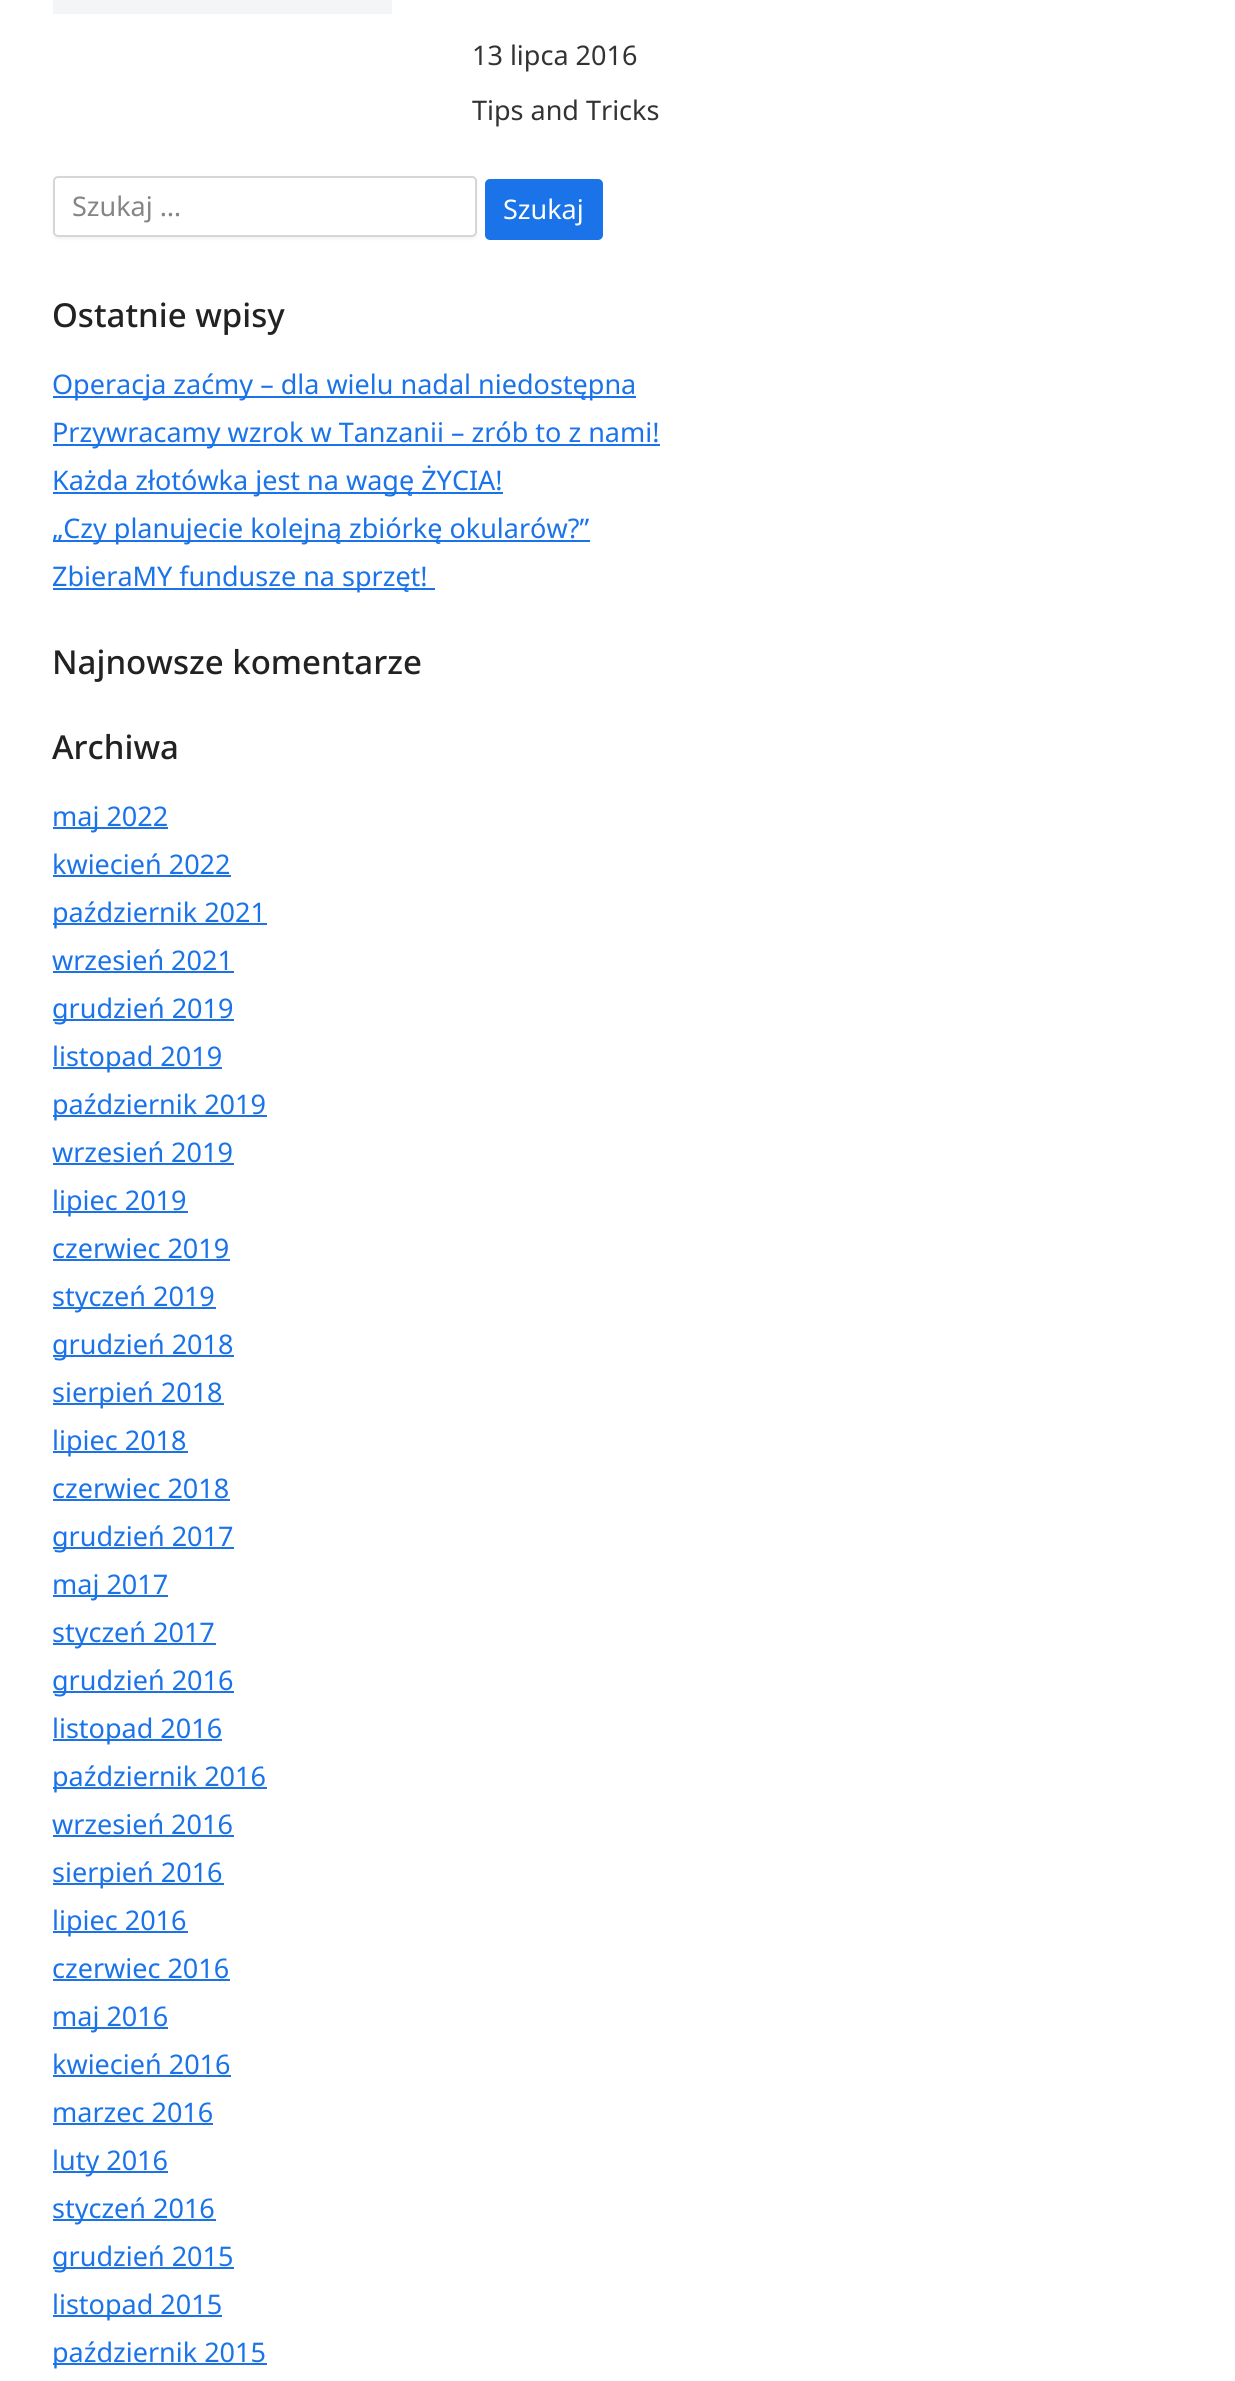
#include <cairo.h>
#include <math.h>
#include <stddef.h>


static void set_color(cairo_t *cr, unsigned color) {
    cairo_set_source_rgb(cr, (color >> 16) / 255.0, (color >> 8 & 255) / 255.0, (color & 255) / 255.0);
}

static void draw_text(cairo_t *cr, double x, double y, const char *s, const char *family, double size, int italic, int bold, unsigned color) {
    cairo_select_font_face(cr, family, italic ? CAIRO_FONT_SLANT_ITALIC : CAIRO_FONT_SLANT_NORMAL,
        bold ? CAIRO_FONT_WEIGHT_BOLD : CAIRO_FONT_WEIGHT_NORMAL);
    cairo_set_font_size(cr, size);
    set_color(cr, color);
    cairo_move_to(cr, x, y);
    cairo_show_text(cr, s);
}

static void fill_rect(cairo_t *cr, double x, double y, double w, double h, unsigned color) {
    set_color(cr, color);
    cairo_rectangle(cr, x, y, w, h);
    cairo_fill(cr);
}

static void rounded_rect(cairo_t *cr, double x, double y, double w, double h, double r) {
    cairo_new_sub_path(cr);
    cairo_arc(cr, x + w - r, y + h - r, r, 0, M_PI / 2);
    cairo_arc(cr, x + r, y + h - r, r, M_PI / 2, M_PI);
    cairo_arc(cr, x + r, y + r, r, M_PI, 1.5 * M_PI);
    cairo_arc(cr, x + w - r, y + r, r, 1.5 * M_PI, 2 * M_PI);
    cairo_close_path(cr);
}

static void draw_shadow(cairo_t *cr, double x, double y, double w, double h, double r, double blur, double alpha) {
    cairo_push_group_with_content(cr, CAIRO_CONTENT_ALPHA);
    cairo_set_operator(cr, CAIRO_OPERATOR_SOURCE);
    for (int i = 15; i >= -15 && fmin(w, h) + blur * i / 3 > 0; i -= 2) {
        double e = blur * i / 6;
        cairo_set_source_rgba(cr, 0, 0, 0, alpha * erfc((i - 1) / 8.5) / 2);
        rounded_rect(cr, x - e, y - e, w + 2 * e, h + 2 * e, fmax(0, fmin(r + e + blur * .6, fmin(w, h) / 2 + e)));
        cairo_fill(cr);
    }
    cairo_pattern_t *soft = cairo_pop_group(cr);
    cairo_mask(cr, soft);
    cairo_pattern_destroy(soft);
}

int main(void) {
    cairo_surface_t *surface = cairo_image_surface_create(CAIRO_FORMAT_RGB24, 1235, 2381);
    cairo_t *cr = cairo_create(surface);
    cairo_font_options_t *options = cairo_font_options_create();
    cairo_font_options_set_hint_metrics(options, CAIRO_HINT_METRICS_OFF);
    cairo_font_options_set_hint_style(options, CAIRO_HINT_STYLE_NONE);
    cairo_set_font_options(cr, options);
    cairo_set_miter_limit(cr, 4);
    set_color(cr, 0xFFFFFF);
    cairo_paint(cr);
    fill_rect(cr, 53, 0, 339, 14, 0xF3F5F7);
    draw_text(cr, 472, 65, "13 lipca 2016", "Noto Sans", 27, 0, 0, 0x333333);
    draw_text(cr, 472, 120, "Tips and Tricks", "Noto Sans", 27, 0, 0, 0x333333);
    cairo_save(cr);
    cairo_set_fill_rule(cr, CAIRO_FILL_RULE_EVEN_ODD);
    cairo_new_path(cr);
    cairo_move_to(cr, 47, 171);
    cairo_line_to(cr, 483, 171);
    cairo_line_to(cr, 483, 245);
    cairo_line_to(cr, 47, 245);
    cairo_close_path(cr);
    cairo_move_to(cr, 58, 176);
    cairo_line_to(cr, 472, 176);
    cairo_curve_to(cr, 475, 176, 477, 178, 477, 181);
    cairo_line_to(cr, 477, 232);
    cairo_curve_to(cr, 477, 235, 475, 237, 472, 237);
    cairo_line_to(cr, 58, 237);
    cairo_curve_to(cr, 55, 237, 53, 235, 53, 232);
    cairo_line_to(cr, 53, 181);
    cairo_curve_to(cr, 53, 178, 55, 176, 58, 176);
    cairo_close_path(cr);
    cairo_clip(cr);
    set_color(cr, 0x000000);
    draw_shadow(cr, 53, 177, 424, 62, 5, 1.5, 0.05);
    cairo_restore(cr);
    rounded_rect(cr, 54, 177, 422, 59, 4);
    set_color(cr, 0xD6D6D6);
    cairo_stroke(cr);
    draw_text(cr, 72, 216, "Szukaj …", "Noto Sans", 27, 0, 0, 0x858585);
    set_color(cr, 0x1A73E8);
    rounded_rect(cr, 485, 179, 118, 61, 5);
    cairo_fill(cr);
    draw_text(cr, 503, 219, "Szukaj", "Noto Sans", 27, 0, 0, 0xFFFFFF);
    draw_text(cr, 52, 327, "Ostatnie wpisy", "Noto Sans Medium", 33, 0, 0, 0x222222);
    fill_rect(cr, 53, 396, 583, 2, 0x1A73E8);
    draw_text(cr, 52, 394, "Operacja zaćmy – dla wielu nadal niedostępna", "Noto Sans", 27, 0, 0, 0x1A73E8);
    fill_rect(cr, 53, 444, 607, 2, 0x1A73E8);
    draw_text(cr, 52, 442, "Przywracamy wzrok w Tanzanii – zrób to z nami!", "Noto Sans", 27, 0, 0, 0x1A73E8);
    fill_rect(cr, 53, 492, 450, 2, 0x1A73E8);
    draw_text(cr, 52, 490, "Każda złotówka jest na wagę ŻYCIA!", "Noto Sans", 27, 0, 0, 0x1A73E8);
    fill_rect(cr, 53, 540, 537, 2, 0x1A73E8);
    draw_text(cr, 52, 538, "„Czy planujecie kolejną zbiórkę okularów?”", "Noto Sans", 27, 0, 0, 0x1A73E8);
    fill_rect(cr, 53, 588, 382, 2, 0x1A73E8);
    draw_text(cr, 52, 586, "ZbieraMY fundusze na sprzęt!", "Noto Sans", 27, 0, 0, 0x1A73E8);
    draw_text(cr, 52, 674, "Najnowsze komentarze", "Noto Sans Medium", 33, 0, 0, 0x222222);
    draw_text(cr, 52, 759, "Archiwa", "Noto Sans Medium", 33, 0, 0, 0x222222);
    fill_rect(cr, 53, 827, 115, 2, 0x1A73E8);
    draw_text(cr, 52, 826, "maj 2022", "Noto Sans", 27, 0, 0, 0x1A73E8);
    draw_text(cr, 52, 874, "kwiecień 2022", "Noto Sans", 27, 0, 0, 0x1A73E8);
    fill_rect(cr, 53, 875, 178, 2, 0x1A73E8);
    fill_rect(cr, 53, 923, 214, 2, 0x1A73E8);
    draw_text(cr, 52, 922, "październik 2021", "Noto Sans", 27, 0, 0, 0x1A73E8);
    draw_text(cr, 52, 970, "wrzesień 2021", "Noto Sans", 27, 0, 0, 0x1A73E8);
    fill_rect(cr, 53, 971, 181, 2, 0x1A73E8);
    fill_rect(cr, 53, 1019, 181, 2, 0x1A73E8);
    draw_text(cr, 52, 1018, "grudzień 2019", "Noto Sans", 27, 0, 0, 0x1A73E8);
    fill_rect(cr, 53, 1067, 169, 2, 0x1A73E8);
    draw_text(cr, 52, 1066, "listopad 2019", "Noto Sans", 27, 0, 0, 0x1A73E8);
    fill_rect(cr, 53, 1115, 214, 2, 0x1A73E8);
    draw_text(cr, 52, 1114, "październik 2019", "Noto Sans", 27, 0, 0, 0x1A73E8);
    draw_text(cr, 52, 1162, "wrzesień 2019", "Noto Sans", 27, 0, 0, 0x1A73E8);
    fill_rect(cr, 53, 1163, 181, 2, 0x1A73E8);
    fill_rect(cr, 53, 1211, 135, 2, 0x1A73E8);
    draw_text(cr, 52, 1210, "lipiec 2019", "Noto Sans", 27, 0, 0, 0x1A73E8);
    draw_text(cr, 52, 1258, "czerwiec 2019", "Noto Sans", 27, 0, 0, 0x1A73E8);
    fill_rect(cr, 53, 1259, 177, 2, 0x1A73E8);
    fill_rect(cr, 53, 1307, 163, 2, 0x1A73E8);
    draw_text(cr, 52, 1306, "styczeń 2019", "Noto Sans", 27, 0, 0, 0x1A73E8);
    fill_rect(cr, 53, 1355, 181, 2, 0x1A73E8);
    draw_text(cr, 52, 1354, "grudzień 2018", "Noto Sans", 27, 0, 0, 0x1A73E8);
    fill_rect(cr, 53, 1403, 171, 2, 0x1A73E8);
    draw_text(cr, 52, 1402, "sierpień 2018", "Noto Sans", 27, 0, 0, 0x1A73E8);
    fill_rect(cr, 53, 1451, 135, 2, 0x1A73E8);
    draw_text(cr, 52, 1450, "lipiec 2018", "Noto Sans", 27, 0, 0, 0x1A73E8);
    draw_text(cr, 52, 1498, "czerwiec 2018", "Noto Sans", 27, 0, 0, 0x1A73E8);
    fill_rect(cr, 53, 1499, 177, 2, 0x1A73E8);
    fill_rect(cr, 53, 1547, 181, 2, 0x1A73E8);
    draw_text(cr, 52, 1546, "grudzień 2017", "Noto Sans", 27, 0, 0, 0x1A73E8);
    fill_rect(cr, 53, 1595, 115, 2, 0x1A73E8);
    draw_text(cr, 52, 1594, "maj 2017", "Noto Sans", 27, 0, 0, 0x1A73E8);
    fill_rect(cr, 53, 1643, 163, 2, 0x1A73E8);
    draw_text(cr, 52, 1642, "styczeń 2017", "Noto Sans", 27, 0, 0, 0x1A73E8);
    fill_rect(cr, 53, 1691, 181, 2, 0x1A73E8);
    draw_text(cr, 52, 1690, "grudzień 2016", "Noto Sans", 27, 0, 0, 0x1A73E8);
    fill_rect(cr, 53, 1739, 169, 2, 0x1A73E8);
    draw_text(cr, 52, 1738, "listopad 2016", "Noto Sans", 27, 0, 0, 0x1A73E8);
    fill_rect(cr, 53, 1787, 214, 2, 0x1A73E8);
    draw_text(cr, 52, 1786, "październik 2016", "Noto Sans", 27, 0, 0, 0x1A73E8);
    draw_text(cr, 52, 1834, "wrzesień 2016", "Noto Sans", 27, 0, 0, 0x1A73E8);
    fill_rect(cr, 53, 1835, 181, 2, 0x1A73E8);
    fill_rect(cr, 53, 1883, 171, 2, 0x1A73E8);
    draw_text(cr, 52, 1882, "sierpień 2016", "Noto Sans", 27, 0, 0, 0x1A73E8);
    fill_rect(cr, 53, 1931, 135, 2, 0x1A73E8);
    draw_text(cr, 52, 1930, "lipiec 2016", "Noto Sans", 27, 0, 0, 0x1A73E8);
    draw_text(cr, 52, 1978, "czerwiec 2016", "Noto Sans", 27, 0, 0, 0x1A73E8);
    fill_rect(cr, 53, 1979, 177, 2, 0x1A73E8);
    fill_rect(cr, 53, 2027, 115, 2, 0x1A73E8);
    draw_text(cr, 52, 2026, "maj 2016", "Noto Sans", 27, 0, 0, 0x1A73E8);
    draw_text(cr, 52, 2074, "kwiecień 2016", "Noto Sans", 27, 0, 0, 0x1A73E8);
    fill_rect(cr, 53, 2075, 178, 2, 0x1A73E8);
    draw_text(cr, 52, 2122, "marzec 2016", "Noto Sans", 27, 0, 0, 0x1A73E8);
    fill_rect(cr, 53, 2123, 160, 2, 0x1A73E8);
    fill_rect(cr, 53, 2171, 115, 2, 0x1A73E8);
    draw_text(cr, 52, 2170, "luty 2016", "Noto Sans", 27, 0, 0, 0x1A73E8);
    fill_rect(cr, 53, 2219, 163, 2, 0x1A73E8);
    draw_text(cr, 52, 2218, "styczeń 2016", "Noto Sans", 27, 0, 0, 0x1A73E8);
    fill_rect(cr, 53, 2267, 181, 2, 0x1A73E8);
    draw_text(cr, 52, 2266, "grudzień 2015", "Noto Sans", 27, 0, 0, 0x1A73E8);
    fill_rect(cr, 53, 2315, 169, 2, 0x1A73E8);
    draw_text(cr, 52, 2314, "listopad 2015", "Noto Sans", 27, 0, 0, 0x1A73E8);
    fill_rect(cr, 53, 2363, 214, 2, 0x1A73E8);
    draw_text(cr, 52, 2362, "październik 2015", "Noto Sans", 27, 0, 0, 0x1A73E8);
    cairo_surface_write_to_png(surface, "output.png");
    cairo_font_options_destroy(options);
    cairo_destroy(cr);
    cairo_surface_destroy(surface);
    return 0;
}
